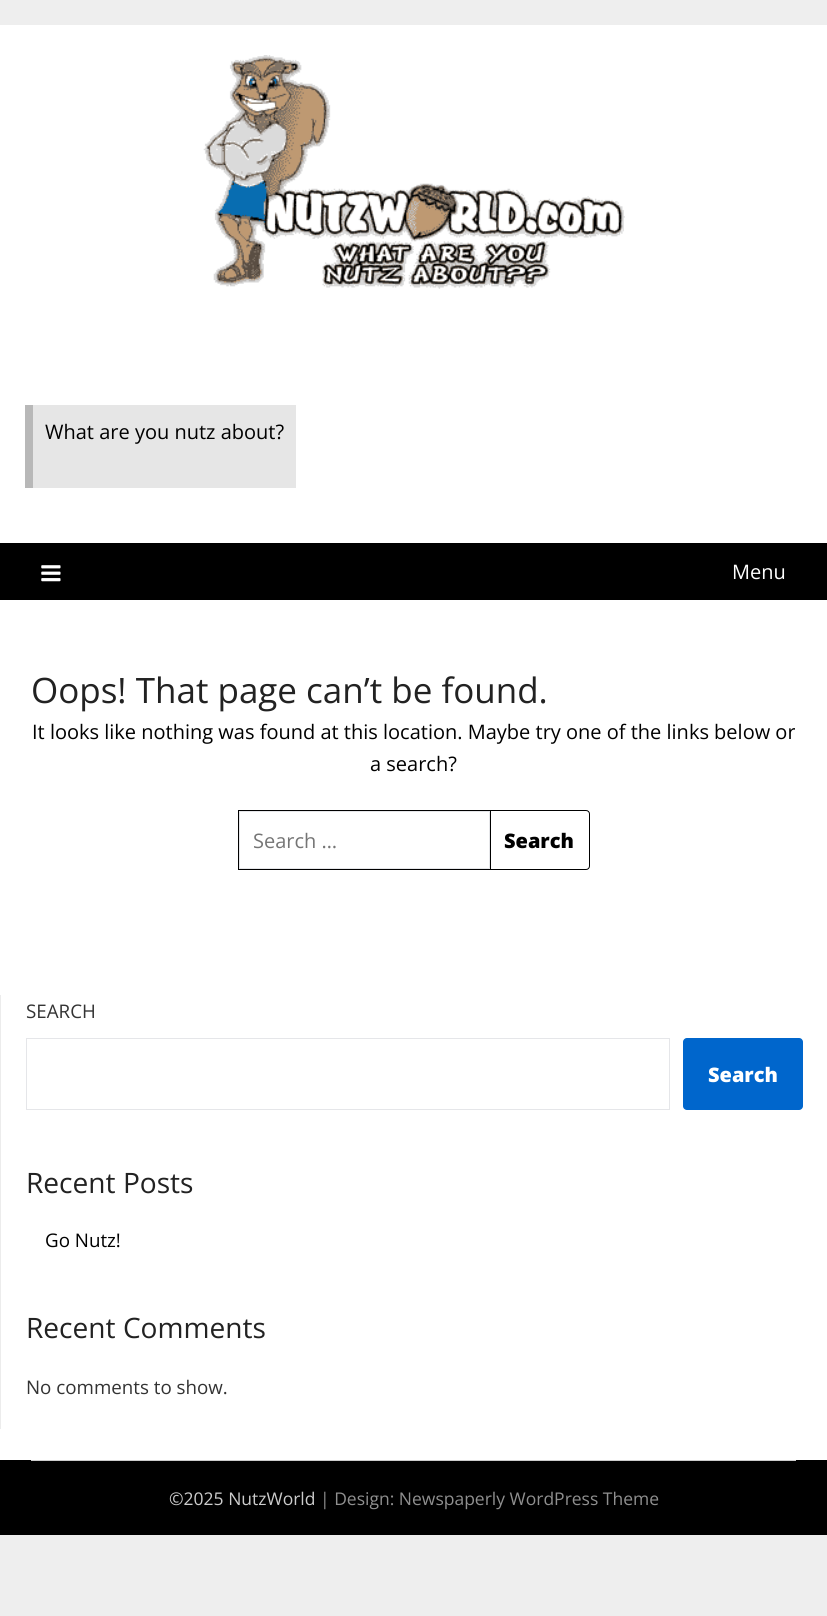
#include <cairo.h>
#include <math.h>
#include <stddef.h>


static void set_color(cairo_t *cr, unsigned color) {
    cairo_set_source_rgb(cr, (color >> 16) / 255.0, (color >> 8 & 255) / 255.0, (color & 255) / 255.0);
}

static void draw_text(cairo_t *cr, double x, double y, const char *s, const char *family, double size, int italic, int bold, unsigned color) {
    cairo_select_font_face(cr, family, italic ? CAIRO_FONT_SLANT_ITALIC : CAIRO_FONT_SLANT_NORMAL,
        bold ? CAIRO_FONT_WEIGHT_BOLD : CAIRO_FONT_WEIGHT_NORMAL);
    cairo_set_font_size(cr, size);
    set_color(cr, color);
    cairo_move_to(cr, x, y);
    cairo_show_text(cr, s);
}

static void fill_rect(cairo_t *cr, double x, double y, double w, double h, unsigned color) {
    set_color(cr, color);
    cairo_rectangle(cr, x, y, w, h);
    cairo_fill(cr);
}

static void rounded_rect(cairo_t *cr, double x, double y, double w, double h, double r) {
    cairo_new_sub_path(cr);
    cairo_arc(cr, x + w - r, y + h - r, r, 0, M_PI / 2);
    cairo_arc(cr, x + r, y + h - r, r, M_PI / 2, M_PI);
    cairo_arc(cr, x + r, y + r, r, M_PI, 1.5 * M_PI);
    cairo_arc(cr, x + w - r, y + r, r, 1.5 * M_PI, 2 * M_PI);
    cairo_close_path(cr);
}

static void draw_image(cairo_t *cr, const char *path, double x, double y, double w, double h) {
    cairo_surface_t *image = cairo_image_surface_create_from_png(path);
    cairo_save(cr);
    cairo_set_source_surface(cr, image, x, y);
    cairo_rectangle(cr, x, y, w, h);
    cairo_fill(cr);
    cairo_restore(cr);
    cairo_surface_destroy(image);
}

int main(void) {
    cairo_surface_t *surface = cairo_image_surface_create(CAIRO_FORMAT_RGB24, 827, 1616);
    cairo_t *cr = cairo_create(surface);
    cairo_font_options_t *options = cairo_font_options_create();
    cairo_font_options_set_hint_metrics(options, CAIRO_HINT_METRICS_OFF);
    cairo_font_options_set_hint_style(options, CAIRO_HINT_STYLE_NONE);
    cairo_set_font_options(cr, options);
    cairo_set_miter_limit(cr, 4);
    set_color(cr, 0xEEEEEE);
    cairo_paint(cr);
    fill_rect(cr, 0, 25, 827, 518, 0xFFFFFF);
    draw_image(cr, "assets/img1.png", 203, 55, 422, 234);
    fill_rect(cr, 33, 405, 263, 83, 0xE6E6E6);
    fill_rect(cr, 25, 405, 8, 83, 0xB8B8B8);
    draw_text(cr, 45, 439, "What are you nutz about?", "Open Sans", 20, 0, 0, 0x000000);
    fill_rect(cr, 0, 543, 827, 57, 0x000000);
    draw_image(cr, "assets/img2.png", 41, 565, 20, 17);
    draw_text(cr, 732, 579, "Menu", "Open Sans", 20, 0, 0, 0xFFFFFF);
    fill_rect(cr, 0, 600, 827, 860, 0xFFFFFF);
    draw_text(cr, 31, 703, "Oops! That page can’t be found.", "Open Sans", 35, 0, 0, 0x222222);
    draw_text(cr, 32, 739, "It looks like nothing was found at this location. Maybe try one of the links below or", "Open Sans", 20, 0, 0, 0x000000);
    draw_text(cr, 370, 771, "a search?", "Open Sans", 20, 0, 0, 0x000000);
    fill_rect(cr, 238, 810, 252, 1, 0x000000);
    fill_rect(cr, 238, 869, 252, 1, 0x000000);
    fill_rect(cr, 238, 810, 1, 60, 0x000000);
    cairo_rectangle(cr, 239.5, 811.5, 250, 57);
    set_color(cr, 0xE5E6E9);
    cairo_set_line_width(cr, 1);
    cairo_stroke(cr);
    draw_text(cr, 253, 848, "Search …", "Open Sans", 20, 0, 0, 0x757575);
    cairo_new_path(cr);
    cairo_move_to(cr, 490.5, 810.5);
    cairo_line_to(cr, 586, 810.5);
    cairo_curve_to(cr, 588, 810.5, 589.5, 812, 589.5, 814);
    cairo_line_to(cr, 589.5, 866);
    cairo_curve_to(cr, 589.5, 868, 588, 869.5, 586, 869.5);
    cairo_line_to(cr, 490.5, 869.5);
    cairo_close_path(cr);
    set_color(cr, 0x000000);
    cairo_stroke(cr);
    draw_text(cr, 504, 848, "Search", "Open Sans ExtraBold", 20, 0, 0, 0x000000);
    fill_rect(cr, 0, 995, 1, 434, 0xECECEC);
    draw_text(cr, 26, 1018, "SEARCH", "Open Sans", 18.75, 0, 0, 0x333333);
    cairo_rectangle(cr, 26.5, 1038.5, 643, 71);
    set_color(cr, 0xE5E6E9);
    cairo_stroke(cr);
    set_color(cr, 0x0066CC);
    rounded_rect(cr, 683, 1038, 120, 72, 4);
    cairo_fill(cr);
    draw_text(cr, 708, 1082, "Search", "Open Sans ExtraBold", 20, 0, 0, 0xFFFFFF);
    draw_text(cr, 26, 1193, "Recent Posts", "Open Sans", 28.1, 0, 0, 0x222222);
    draw_text(cr, 45, 1247, "Go Nutz!", "Open Sans", 18.75, 0, 0, 0x000000);
    draw_text(cr, 26, 1338, "Recent Comments", "Open Sans", 28.1, 0, 0, 0x222222);
    draw_text(cr, 26, 1394, "No comments to show.", "Open Sans", 18.75, 0, 0, 0x333333);
    fill_rect(cr, 0, 1460, 827, 75, 0x000000);
    fill_rect(cr, 31, 1460, 765, 1, 0xCCCCCC);
    draw_text(cr, 169, 1505, "©2025 NutzWorld", "Open Sans", 17.5, 0, 0, 0xCCCCCC);
    draw_text(cr, 320, 1505, "| Design: Newspaperly WordPress Theme", "Open Sans", 17.5, 0, 0, 0x8F8F8F);
    cairo_surface_write_to_png(surface, "output.png");
    cairo_font_options_destroy(options);
    cairo_destroy(cr);
    cairo_surface_destroy(surface);
    return 0;
}
